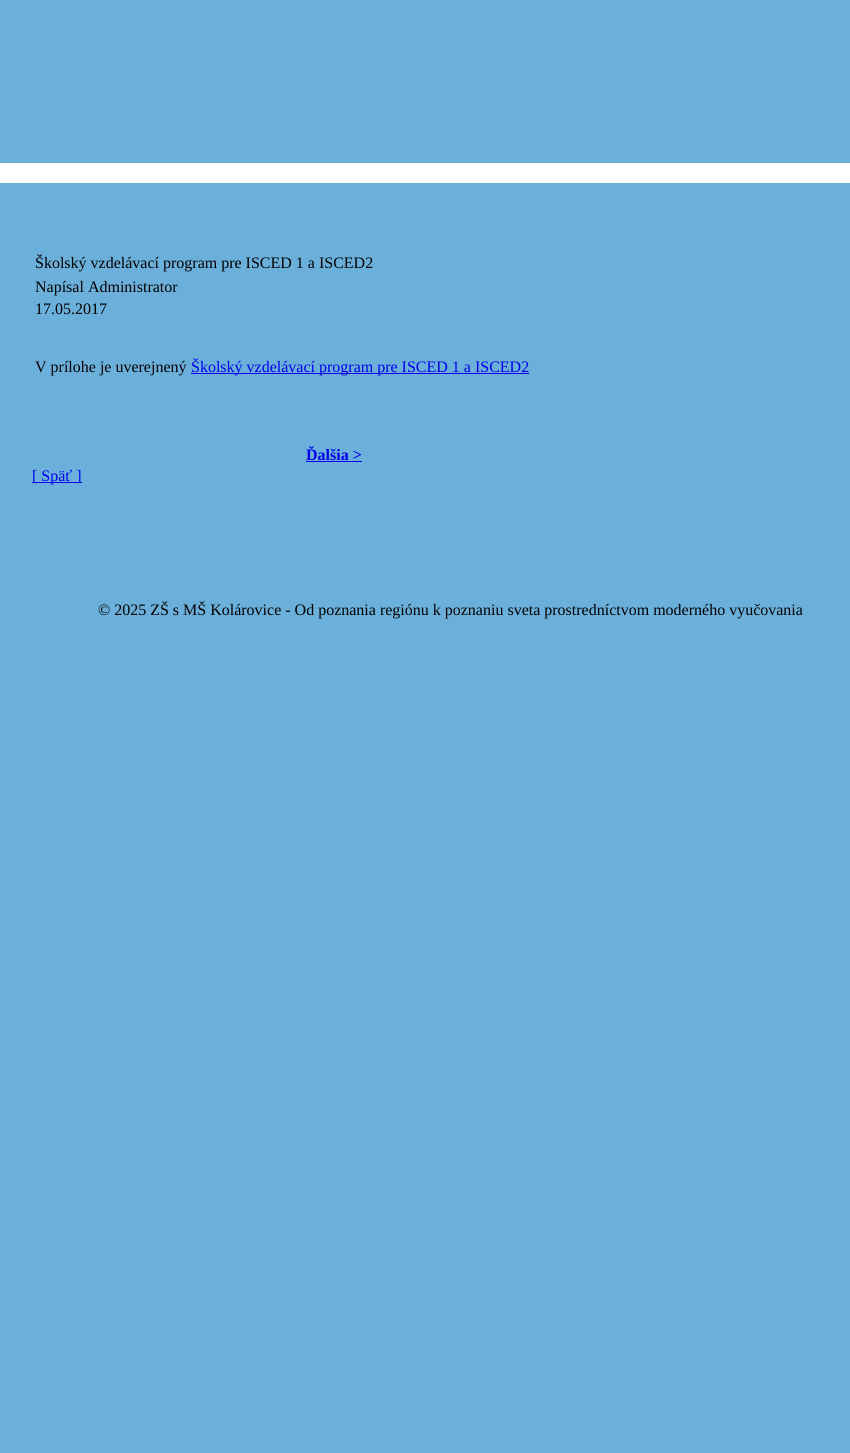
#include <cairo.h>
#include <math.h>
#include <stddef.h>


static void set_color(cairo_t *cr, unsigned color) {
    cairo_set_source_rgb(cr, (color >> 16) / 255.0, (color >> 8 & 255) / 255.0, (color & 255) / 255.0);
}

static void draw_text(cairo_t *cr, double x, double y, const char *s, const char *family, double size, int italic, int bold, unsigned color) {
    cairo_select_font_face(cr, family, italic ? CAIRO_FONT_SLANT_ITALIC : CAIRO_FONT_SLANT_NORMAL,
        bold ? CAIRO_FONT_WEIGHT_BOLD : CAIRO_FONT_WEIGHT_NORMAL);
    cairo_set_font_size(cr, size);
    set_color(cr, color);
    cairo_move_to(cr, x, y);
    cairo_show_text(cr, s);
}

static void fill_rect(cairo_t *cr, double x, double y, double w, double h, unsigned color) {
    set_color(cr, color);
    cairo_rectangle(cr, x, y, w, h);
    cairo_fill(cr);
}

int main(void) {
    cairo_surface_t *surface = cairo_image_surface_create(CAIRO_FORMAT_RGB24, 850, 1453);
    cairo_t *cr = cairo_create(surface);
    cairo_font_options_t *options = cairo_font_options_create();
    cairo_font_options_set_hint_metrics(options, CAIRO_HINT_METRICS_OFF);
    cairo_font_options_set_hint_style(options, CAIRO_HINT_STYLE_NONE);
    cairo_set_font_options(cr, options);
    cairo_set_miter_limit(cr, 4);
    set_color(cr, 0x6BB0DA);
    cairo_paint(cr);
    fill_rect(cr, 0, 163, 850, 20, 0xFFFFFF);
    draw_text(cr, 35, 268, "Školský vzdelávací program pre ISCED 1 a ISCED2", "Liberation Serif", 16, 0, 0, 0x000000);
    draw_text(cr, 35, 292, "Napísal Administrator", "Liberation Serif", 16, 0, 0, 0x000000);
    draw_text(cr, 35, 314, "17.05.2017", "Liberation Serif", 16, 0, 0, 0x000000);
    draw_text(cr, 35, 372, "V prílohe je uverejnený", "Liberation Serif", 16, 0, 0, 0x000000);
    fill_rect(cr, 191, 373, 338, 1, 0x0000EE);
    draw_text(cr, 191, 372, "Školský vzdelávací program pre ISCED 1 a ISCED2", "Liberation Serif", 16, 0, 0, 0x0000EE);
    draw_text(cr, 306, 460, "Ďalšia >", "Liberation Serif", 16, 0, 1, 0x0000EE);
    fill_rect(cr, 306, 461, 56, 1, 0x0000EE);
    fill_rect(cr, 32, 482, 50, 1, 0x0000EE);
    draw_text(cr, 32, 481, "[ Späť ]", "Liberation Serif", 16, 0, 0, 0x0000EE);
    draw_text(cr, 98, 615, "© 2025 ZŠ s MŠ Kolárovice - Od poznania regiónu k poznaniu sveta prostredníctvom moderného vyučovania", "Liberation Serif", 16, 0, 0, 0x000000);
    cairo_surface_write_to_png(surface, "output.png");
    cairo_font_options_destroy(options);
    cairo_destroy(cr);
    cairo_surface_destroy(surface);
    return 0;
}
